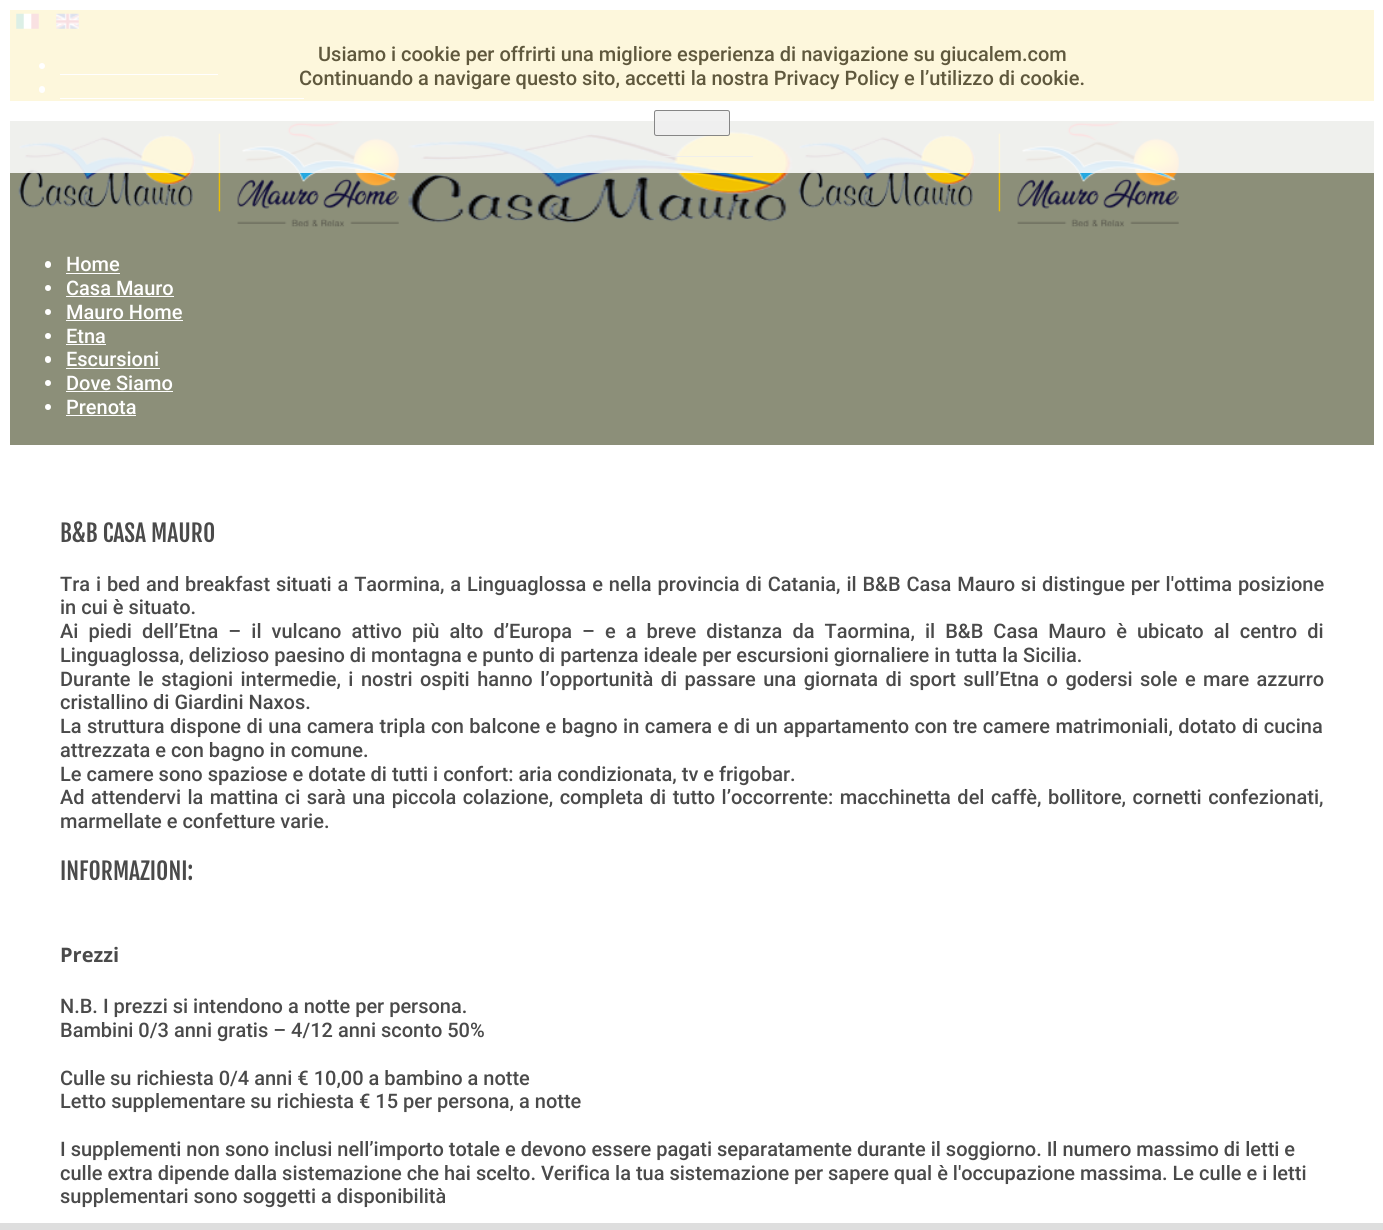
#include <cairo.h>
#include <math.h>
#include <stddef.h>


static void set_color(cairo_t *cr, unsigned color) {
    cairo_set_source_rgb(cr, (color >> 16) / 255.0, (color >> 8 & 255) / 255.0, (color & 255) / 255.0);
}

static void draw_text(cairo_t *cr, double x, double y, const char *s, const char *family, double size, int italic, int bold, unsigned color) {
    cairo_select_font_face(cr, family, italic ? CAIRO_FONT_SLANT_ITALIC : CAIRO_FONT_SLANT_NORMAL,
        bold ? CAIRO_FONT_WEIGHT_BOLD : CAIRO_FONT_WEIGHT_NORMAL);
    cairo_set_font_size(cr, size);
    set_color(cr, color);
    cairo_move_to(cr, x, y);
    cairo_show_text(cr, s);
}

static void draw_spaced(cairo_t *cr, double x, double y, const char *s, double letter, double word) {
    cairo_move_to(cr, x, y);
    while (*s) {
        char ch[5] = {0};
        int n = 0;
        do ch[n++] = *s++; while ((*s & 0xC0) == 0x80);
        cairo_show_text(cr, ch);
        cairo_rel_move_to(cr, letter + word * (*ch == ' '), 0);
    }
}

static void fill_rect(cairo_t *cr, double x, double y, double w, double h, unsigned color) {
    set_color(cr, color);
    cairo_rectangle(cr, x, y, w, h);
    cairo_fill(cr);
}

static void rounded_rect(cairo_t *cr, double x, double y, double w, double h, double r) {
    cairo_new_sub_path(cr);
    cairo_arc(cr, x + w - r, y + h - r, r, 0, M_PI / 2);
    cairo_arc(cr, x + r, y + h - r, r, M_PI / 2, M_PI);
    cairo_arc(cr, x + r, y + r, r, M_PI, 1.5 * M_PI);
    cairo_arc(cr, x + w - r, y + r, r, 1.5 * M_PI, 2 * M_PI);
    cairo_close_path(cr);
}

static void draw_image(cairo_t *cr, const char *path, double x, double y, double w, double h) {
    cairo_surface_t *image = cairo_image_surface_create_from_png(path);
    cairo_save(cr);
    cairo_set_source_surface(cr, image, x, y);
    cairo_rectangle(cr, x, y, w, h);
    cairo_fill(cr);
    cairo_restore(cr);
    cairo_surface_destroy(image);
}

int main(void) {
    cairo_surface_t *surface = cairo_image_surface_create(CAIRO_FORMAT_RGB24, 1383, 1230);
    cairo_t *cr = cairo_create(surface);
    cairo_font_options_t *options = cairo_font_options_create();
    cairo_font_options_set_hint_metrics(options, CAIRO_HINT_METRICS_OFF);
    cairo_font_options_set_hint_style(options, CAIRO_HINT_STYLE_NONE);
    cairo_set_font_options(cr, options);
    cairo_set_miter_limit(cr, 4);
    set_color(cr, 0xFFFFFF);
    cairo_paint(cr);
    fill_rect(cr, 10, 10, 1364, 91, 0xF2C200);
    draw_image(cr, "assets/img1.png", 16, 13, 23, 16);
    draw_image(cr, "assets/img2.png", 56, 13, 23, 16);
    set_color(cr, 0xFFFFFF);
    cairo_arc(cr, 42, 66, 3, 0, 2 * M_PI);
    cairo_fill(cr);
    fill_rect(cr, 60, 74, 158, 1, 0xFFFFFF);
    rounded_rect(cr, 39, 86, 6, 7, 3);
    cairo_fill(cr);
    fill_rect(cr, 60, 98, 244, 1, 0xFFFFFF);
    fill_rect(cr, 10, 121, 1364, 324, 0x8C8F79);
    draw_image(cr, "assets/img3.png", 18, 121, 381, 106);
    draw_image(cr, "assets/img4.png", 408, 125, 385, 98);
    draw_image(cr, "assets/img5.png", 798, 121, 381, 106);
    cairo_set_source_rgba(cr, 1, 1, 1, 0.86);
    cairo_rectangle(cr, 10, 10, 1364, 163);
    cairo_fill(cr);
    draw_text(cr, 318, 61, "Usiamo i cookie per offrirti una migliore esperienza di navigazione su giucalem.com", "Roboto Medium", 20, 0, 0, 0x5F583D);
    draw_text(cr, 299, 85, "Continuando a navigare questo sito, accetti la nostra Privacy Policy e l’utilizzo di cookie.", "Roboto Medium", 20, 0, 0, 0x5F583D);
    cairo_set_source_rgba(cr, 0.937, 0.937, 0.937, 0.86);
    rounded_rect(cr, 654, 110, 76, 26, 2.5);
    cairo_fill(cr);
    rounded_rect(cr, 654.5, 110.5, 75, 25, 2);
    cairo_set_source_rgba(cr, 0.463, 0.463, 0.463, 0.86);
    cairo_set_line_width(cr, 1);
    cairo_stroke(cr);
    cairo_set_source_rgba(cr, 0.933, 0.933, 0.933, 0.86);
    cairo_rectangle(cr, 662, 156, 91, 1);
    cairo_fill(cr);
    set_color(cr, 0xFFFFFF);
    rounded_rect(cr, 45, 261, 6, 7, 3);
    cairo_fill(cr);
    draw_text(cr, 66, 271, "Home", "Roboto Medium", 20, 0, 0, 0xFFFFFF);
    fill_rect(cr, 66, 273, 54, 1, 0xFFFFFF);
    cairo_new_path(cr);
    cairo_arc(cr, 48, 288, 3, 0, 2 * M_PI);
    cairo_fill(cr);
    draw_text(cr, 66, 295, "Casa Mauro", "Roboto Medium", 20, 0, 0, 0xFFFFFF);
    fill_rect(cr, 66, 296, 108, 1, 0xFFFFFF);
    cairo_new_path(cr);
    cairo_arc(cr, 48, 312, 3, 0, 2 * M_PI);
    cairo_fill(cr);
    draw_text(cr, 66, 319, "Mauro Home", "Roboto Medium", 20, 0, 0, 0xFFFFFF);
    fill_rect(cr, 66, 320, 117, 1, 0xFFFFFF);
    cairo_new_path(cr);
    cairo_arc(cr, 48, 336, 3, 0, 2 * M_PI);
    cairo_fill(cr);
    draw_text(cr, 66, 343, "Etna", "Roboto Medium", 20, 0, 0, 0xFFFFFF);
    fill_rect(cr, 66, 344, 40, 1, 0xFFFFFF);
    rounded_rect(cr, 45, 356, 6, 7, 3);
    cairo_fill(cr);
    draw_text(cr, 66, 366, "Escursioni", "Roboto Medium", 20, 0, 0, 0xFFFFFF);
    fill_rect(cr, 66, 368, 94, 1, 0xFFFFFF);
    cairo_new_path(cr);
    cairo_arc(cr, 48, 383, 3, 0, 2 * M_PI);
    cairo_fill(cr);
    draw_text(cr, 66, 390, "Dove Siamo", "Roboto Medium", 20, 0, 0, 0xFFFFFF);
    fill_rect(cr, 66, 391, 107, 1, 0xFFFFFF);
    cairo_new_path(cr);
    cairo_arc(cr, 48, 407, 3, 0, 2 * M_PI);
    cairo_fill(cr);
    draw_text(cr, 66, 414, "Prenota", "Roboto Medium", 20, 0, 0, 0xFFFFFF);
    fill_rect(cr, 66, 415, 70, 1, 0xFFFFFF);
    draw_text(cr, 60, 542, "B&B CASA MAURO", "Fjalla One", 23.5, 0, 0, 0x4A4A4A);
    cairo_select_font_face(cr, "Roboto Medium", CAIRO_FONT_SLANT_NORMAL, CAIRO_FONT_WEIGHT_NORMAL);
    cairo_set_font_size(cr, 20);
    draw_spaced(cr, 60, 591, "Tra i bed and breakfast situati a Taormina, a Linguaglossa e nella provincia di Catania, il B&B Casa Mauro si distingue per l'ottima posizione", 0, 0.9);
    draw_text(cr, 60, 614, "in cui è situato.", "Roboto Medium", 20, 0, 0, 0x4A4A4A);
    draw_spaced(cr, 60, 638, "Ai piedi dell’Etna – il vulcano attivo più alto d’Europa – e a breve distanza da Taormina, il B&B Casa Mauro è ubicato al centro di", 0, 5.1);
    draw_text(cr, 60, 662, "Linguaglossa, delizioso paesino di montagna e punto di partenza ideale per escursioni giornaliere in tutta la Sicilia.", "Roboto Medium", 20, 0, 0, 0x4A4A4A);
    draw_spaced(cr, 60, 686, "Durante le stagioni intermedie, i nostri ospiti hanno l’opportunità di passare una giornata di sport sull’Etna o godersi sole e mare azzurro", 0, 2.5);
    draw_text(cr, 60, 709, "cristallino di Giardini Naxos.", "Roboto Medium", 20, 0, 0, 0x4A4A4A);
    draw_spaced(cr, 60, 733, "La struttura dispone di una camera tripla con balcone e bagno in camera e di un appartamento con tre camere matrimoniali, dotato di cucina", 0, 0.5);
    draw_text(cr, 60, 757, "attrezzata e con bagno in comune.", "Roboto Medium", 20, 0, 0, 0x4A4A4A);
    draw_text(cr, 60, 781, "Le camere sono spaziose e dotate di tutti i confort: aria condizionata, tv e frigobar.", "Roboto Medium", 20, 0, 0, 0x4A4A4A);
    draw_spaced(cr, 60, 804, "Ad attendervi la mattina ci sarà una piccola colazione, completa di tutto l’occorrente: macchinetta del caffè, bollitore, cornetti confezionati,", 0, 1.5);
    draw_text(cr, 60, 828, "marmellate e confetture varie.", "Roboto Medium", 20, 0, 0, 0x4A4A4A);
    draw_text(cr, 60, 880, "INFORMAZIONI:", "Fjalla One", 23.5, 0, 0, 0x4A4A4A);
    draw_text(cr, 60, 962, "Prezzi", "Open Sans", 20, 0, 1, 0x4A4A4A);
    draw_text(cr, 60, 1013, "N.B. I prezzi si intendono a notte per persona.", "Roboto Medium", 20, 0, 0, 0x4A4A4A);
    draw_text(cr, 60, 1037, "Bambini 0/3 anni gratis – 4/12 anni sconto 50%", "Roboto Medium", 20, 0, 0, 0x4A4A4A);
    draw_text(cr, 60, 1085, "Culle su richiesta 0/4 anni € 10,00 a bambino a notte", "Roboto Medium", 20, 0, 0, 0x4A4A4A);
    draw_text(cr, 60, 1108, "Letto supplementare su richiesta € 15 per persona, a notte", "Roboto Medium", 20, 0, 0, 0x4A4A4A);
    draw_text(cr, 60, 1156, "I supplementi non sono inclusi nell’importo totale e devono essere pagati separatamente durante il soggiorno. Il numero massimo di letti e", "Roboto Medium", 20, 0, 0, 0x4A4A4A);
    draw_text(cr, 60, 1180, "culle extra dipende dalla sistemazione che hai scelto. Verifica la tua sistemazione per sapere qual è l'occupazione massima. Le culle e i letti", "Roboto Medium", 20, 0, 0, 0x4A4A4A);
    draw_text(cr, 60, 1203, "supplementari sono soggetti a disponibilità", "Roboto Medium", 20, 0, 0, 0x4A4A4A);
    fill_rect(cr, 0, 1223, 1383, 7, 0xDEDEDE);
    cairo_surface_write_to_png(surface, "output.png");
    cairo_font_options_destroy(options);
    cairo_destroy(cr);
    cairo_surface_destroy(surface);
    return 0;
}
